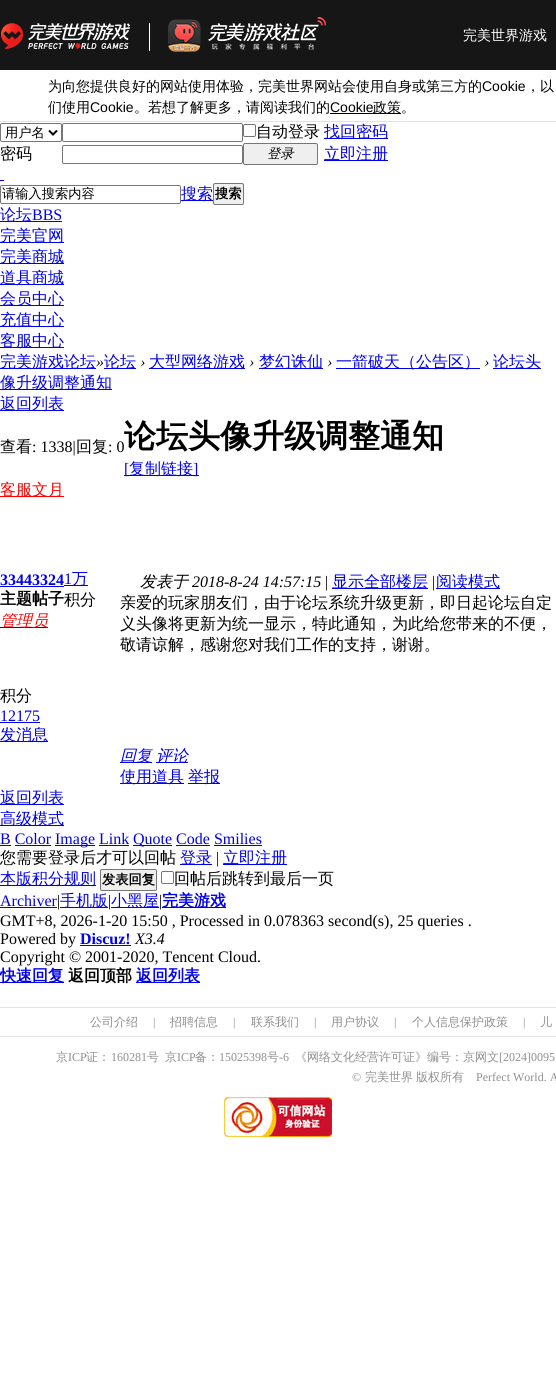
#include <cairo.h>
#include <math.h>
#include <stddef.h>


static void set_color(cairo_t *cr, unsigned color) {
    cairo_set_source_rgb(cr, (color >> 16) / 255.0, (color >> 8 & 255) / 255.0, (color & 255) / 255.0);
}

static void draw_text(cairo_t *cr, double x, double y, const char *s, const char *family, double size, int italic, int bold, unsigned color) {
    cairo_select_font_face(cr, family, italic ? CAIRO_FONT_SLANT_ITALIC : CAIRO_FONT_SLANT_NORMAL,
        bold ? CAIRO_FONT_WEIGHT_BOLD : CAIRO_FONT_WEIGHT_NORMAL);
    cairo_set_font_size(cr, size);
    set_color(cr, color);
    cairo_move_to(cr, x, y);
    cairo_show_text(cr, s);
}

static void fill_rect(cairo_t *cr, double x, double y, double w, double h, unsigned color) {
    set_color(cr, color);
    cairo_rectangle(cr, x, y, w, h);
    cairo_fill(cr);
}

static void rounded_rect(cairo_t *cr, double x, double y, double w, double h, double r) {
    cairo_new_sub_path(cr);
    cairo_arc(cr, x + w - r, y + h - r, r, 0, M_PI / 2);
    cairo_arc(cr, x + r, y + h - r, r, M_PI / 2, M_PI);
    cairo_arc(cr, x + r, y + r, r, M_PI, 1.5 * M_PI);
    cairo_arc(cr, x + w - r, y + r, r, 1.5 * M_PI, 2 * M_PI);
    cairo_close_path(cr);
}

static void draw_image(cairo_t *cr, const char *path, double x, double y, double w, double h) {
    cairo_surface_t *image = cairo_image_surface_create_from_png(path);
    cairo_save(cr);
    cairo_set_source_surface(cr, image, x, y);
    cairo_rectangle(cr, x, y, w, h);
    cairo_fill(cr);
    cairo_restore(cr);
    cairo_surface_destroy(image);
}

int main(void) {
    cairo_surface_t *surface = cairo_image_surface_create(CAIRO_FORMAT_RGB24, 556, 1388);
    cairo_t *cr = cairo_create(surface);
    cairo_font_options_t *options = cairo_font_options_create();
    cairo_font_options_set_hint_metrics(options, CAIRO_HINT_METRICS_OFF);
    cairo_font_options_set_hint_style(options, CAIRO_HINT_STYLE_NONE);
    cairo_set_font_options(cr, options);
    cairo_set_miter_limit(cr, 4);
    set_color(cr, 0xFFFFFF);
    cairo_paint(cr);
    fill_rect(cr, 0, 0, 556, 70, 0x161616);
    draw_image(cr, "assets/img1.png", 1, 17, 325, 35);
    draw_text(cr, 463, 40, "完美世界游戏", "WenQuanYi Zen Hei Medium", 14, 0, 0, 0xFFFFFF);
    fill_rect(cr, 0, 121, 556, 1, 0xE2E2E2);
    draw_text(cr, 48, 91, "为向您提供良好的网站使用体验，完美世界网站会使用自身或第三方的", "WenQuanYi Zen Hei Medium", 14, 0, 0, 0x000000);
    draw_text(cr, 482, 91, "Cookie", "Liberation Sans", 14, 0, 0, 0x000000);
    draw_text(cr, 526, 91, "，以", "WenQuanYi Zen Hei Medium", 14, 0, 0, 0x000000);
    draw_text(cr, 48, 112, "们使用", "WenQuanYi Zen Hei Medium", 14, 0, 0, 0x000000);
    draw_text(cr, 90, 112, "Cookie", "Liberation Sans", 14, 0, 0, 0x000000);
    draw_text(cr, 134, 112, "。若想了解更多，请阅读我们的", "WenQuanYi Zen Hei Medium", 14, 0, 0, 0x000000);
    draw_text(cr, 330, 112, "Cookie", "Liberation Sans", 14, 0, 0, 0x000000);
    fill_rect(cr, 330, 113, 71, 1, 0x000000);
    draw_text(cr, 373, 112, "政策。", "WenQuanYi Zen Hei Medium", 14, 0, 0, 0x000000);
    rounded_rect(cr, 0.5, 123.5, 61, 18, 1.5);
    set_color(cr, 0x767676);
    cairo_set_line_width(cr, 1);
    cairo_stroke(cr);
    cairo_new_path(cr);
    cairo_move_to(cr, 49, 130.5);
    cairo_line_to(cr, 53, 134.5);
    cairo_line_to(cr, 57, 130.5);
    set_color(cr, 0x000000);
    cairo_set_line_width(cr, 2);
    cairo_stroke(cr);
    draw_text(cr, 5, 137, "用户名", "WenQuanYi Zen Hei Medium", 13.25, 0, 0, 0x000000);
    rounded_rect(cr, 62.5, 123.5, 180, 18, 1.5);
    set_color(cr, 0x767676);
    cairo_set_line_width(cr, 1);
    cairo_stroke(cr);
    rounded_rect(cr, 243.5, 124.5, 12, 12, 1.5);
    cairo_stroke(cr);
    draw_text(cr, 256, 137, "自动登录", "WenQuanYi Zen Hei Medium", 16, 0, 0, 0x000000);
    fill_rect(cr, 324, 138, 64, 1, 0x0000EE);
    draw_text(cr, 324, 137, "找回密码", "WenQuanYi Zen Hei Medium", 16, 0, 0, 0x0000EE);
    draw_text(cr, 0, 159, "密码", "WenQuanYi Zen Hei Medium", 16, 0, 0, 0x000000);
    rounded_rect(cr, 62.5, 145.5, 180, 18, 1.5);
    set_color(cr, 0x767676);
    cairo_stroke(cr);
    set_color(cr, 0xEFEFEF);
    rounded_rect(cr, 243.5, 143.5, 74, 21, 1.5);
    cairo_fill_preserve(cr);
    set_color(cr, 0x767676);
    cairo_stroke(cr);
    draw_text(cr, 267, 158, "登录", "WenQuanYi Zen Hei Medium", 13.25, 1, 0, 0x000000);
    fill_rect(cr, 324, 160, 64, 1, 0x0000EE);
    draw_text(cr, 324, 159, "立即注册", "WenQuanYi Zen Hei Medium", 16, 0, 0, 0x0000EE);
    fill_rect(cr, 0, 180, 4, 1, 0x0000EE);
    rounded_rect(cr, 0.5, 185.5, 180, 18, 1.5);
    set_color(cr, 0x767676);
    cairo_stroke(cr);
    draw_text(cr, 2, 198, "请输入搜索内容", "WenQuanYi Zen Hei Medium", 13.25, 0, 0, 0x000000);
    fill_rect(cr, 181, 200, 32, 1, 0x0000EE);
    draw_text(cr, 181, 199, "搜索", "WenQuanYi Zen Hei Medium", 16, 0, 0, 0x0000EE);
    set_color(cr, 0xEFEFEF);
    rounded_rect(cr, 213.5, 183.5, 30, 21, 1.5);
    cairo_fill_preserve(cr);
    set_color(cr, 0x767676);
    cairo_stroke(cr);
    draw_text(cr, 215, 198, "搜索", "WenQuanYi Zen Hei", 13.25, 0, 1, 0x000000);
    fill_rect(cr, 0, 221, 62, 1, 0x0000EE);
    draw_text(cr, 0, 220, "论坛", "WenQuanYi Zen Hei Medium", 16, 0, 0, 0x0000EE);
    draw_text(cr, 32, 220, "BBS", "Liberation Serif", 16, 0, 0, 0x0000EE);
    fill_rect(cr, 0, 242, 64, 1, 0x0000EE);
    draw_text(cr, 0, 241, "完美官网", "WenQuanYi Zen Hei Medium", 16, 0, 0, 0x0000EE);
    fill_rect(cr, 0, 263, 64, 1, 0x0000EE);
    draw_text(cr, 0, 262, "完美商城", "WenQuanYi Zen Hei Medium", 16, 0, 0, 0x0000EE);
    fill_rect(cr, 0, 284, 64, 1, 0x0000EE);
    draw_text(cr, 0, 283, "道具商城", "WenQuanYi Zen Hei Medium", 16, 0, 0, 0x0000EE);
    fill_rect(cr, 0, 305, 64, 1, 0x0000EE);
    draw_text(cr, 0, 304, "会员中心", "WenQuanYi Zen Hei Medium", 16, 0, 0, 0x0000EE);
    fill_rect(cr, 0, 326, 64, 1, 0x0000EE);
    draw_text(cr, 0, 325, "充值中心", "WenQuanYi Zen Hei Medium", 16, 0, 0, 0x0000EE);
    fill_rect(cr, 0, 347, 64, 1, 0x0000EE);
    draw_text(cr, 0, 346, "客服中心", "WenQuanYi Zen Hei Medium", 16, 0, 0, 0x0000EE);
    fill_rect(cr, 0, 368, 96, 1, 0x0000EE);
    draw_text(cr, 0, 367, "完美游戏论坛", "WenQuanYi Zen Hei Medium", 16, 0, 0, 0x0000EE);
    draw_text(cr, 96, 367, "»", "Liberation Serif", 16, 1, 0, 0x000000);
    fill_rect(cr, 104, 368, 32, 1, 0x0000EE);
    draw_text(cr, 104, 367, "论坛", "WenQuanYi Zen Hei Medium", 16, 0, 0, 0x0000EE);
    draw_text(cr, 140, 367, "›", "Liberation Serif", 16, 1, 0, 0x000000);
    fill_rect(cr, 149, 368, 96, 1, 0x0000EE);
    draw_text(cr, 149, 367, "大型网络游戏", "WenQuanYi Zen Hei Medium", 16, 0, 0, 0x0000EE);
    draw_text(cr, 249, 367, "›", "Liberation Serif", 16, 1, 0, 0x000000);
    fill_rect(cr, 259, 368, 64, 1, 0x0000EE);
    draw_text(cr, 259, 367, "梦幻诛仙", "WenQuanYi Zen Hei Medium", 16, 0, 0, 0x0000EE);
    draw_text(cr, 327, 367, "›", "Liberation Serif", 16, 1, 0, 0x000000);
    fill_rect(cr, 336, 368, 144, 1, 0x0000EE);
    draw_text(cr, 336, 367, "一箭破天（公告区）", "WenQuanYi Zen Hei Medium", 16, 0, 0, 0x0000EE);
    draw_text(cr, 484, 367, "›", "Liberation Serif", 16, 1, 0, 0x000000);
    fill_rect(cr, 493, 368, 48, 1, 0x0000EE);
    draw_text(cr, 493, 367, "论坛头", "WenQuanYi Zen Hei Medium", 16, 0, 0, 0x0000EE);
    fill_rect(cr, 0, 389, 112, 1, 0x0000EE);
    draw_text(cr, 0, 388, "像升级调整通知", "WenQuanYi Zen Hei Medium", 16, 0, 0, 0x0000EE);
    fill_rect(cr, 0, 410, 64, 1, 0x0000EE);
    draw_text(cr, 0, 409, "返回列表", "WenQuanYi Zen Hei Medium", 16, 0, 0, 0x0000EE);
    draw_text(cr, 0, 452, "查看", "WenQuanYi Zen Hei Medium", 16, 0, 0, 0x000000);
    draw_text(cr, 32, 452, ": 1338|", "Liberation Serif", 16, 0, 0, 0x000000);
    draw_text(cr, 76, 452, "回复", "WenQuanYi Zen Hei Medium", 16, 0, 0, 0x000000);
    draw_text(cr, 108, 452, ": 0", "Liberation Serif", 16, 0, 0, 0x000000);
    draw_text(cr, 124, 447, "论坛头像升级调整通知", "WenQuanYi Zen Hei", 32, 0, 1, 0x000000);
    fill_rect(cr, 124, 475, 75, 1, 0x0000EE);
    draw_text(cr, 124, 474, "[", "Liberation Serif", 16, 0, 0, 0x0000EE);
    draw_text(cr, 129, 474, "复制链接", "WenQuanYi Zen Hei Medium", 16, 0, 0, 0x0000EE);
    draw_text(cr, 193, 474, "]", "Liberation Serif", 16, 0, 0, 0x0000EE);
    fill_rect(cr, 0, 496, 64, 1, 0xFF0000);
    draw_text(cr, 0, 495, "客服文月", "WenQuanYi Zen Hei Medium", 16, 0, 0, 0xFF0000);
    draw_text(cr, 0, 585, "33443324", "Liberation Serif", 16, 0, 1, 0x0000EE);
    fill_rect(cr, 0, 586, 64, 1, 0x0000EE);
    draw_text(cr, 0, 604, "主题帖子", "WenQuanYi Zen Hei", 16, 0, 1, 0x000000);
    draw_text(cr, 64, 584, "1", "Liberation Serif", 16, 0, 0, 0x0000EE);
    fill_rect(cr, 64, 585, 24, 1, 0x0000EE);
    draw_text(cr, 72, 584, "万", "WenQuanYi Zen Hei Medium", 16, 0, 0, 0x0000EE);
    draw_text(cr, 64, 605, "积分", "WenQuanYi Zen Hei Medium", 16, 0, 0, 0x000000);
    fill_rect(cr, 0, 627, 48, 1, 0x0000EE);
    draw_text(cr, 0, 626, "管理员", "WenQuanYi Zen Hei Medium", 16, 1, 0, 0xFF0000);
    draw_text(cr, 0, 701, "积分", "WenQuanYi Zen Hei Medium", 16, 0, 0, 0x000000);
    draw_text(cr, 0, 721, "12175", "Liberation Serif", 16, 0, 0, 0x0000EE);
    fill_rect(cr, 0, 722, 40, 1, 0x0000EE);
    fill_rect(cr, 0, 741, 48, 1, 0x0000EE);
    draw_text(cr, 0, 740, "发消息", "WenQuanYi Zen Hei Medium", 16, 0, 0, 0x0000EE);
    draw_text(cr, 140, 587, "发表于", "WenQuanYi Zen Hei Medium", 16, 1, 0, 0x000000);
    draw_text(cr, 192, 587, "2018-8-24 14:57:15", "Liberation Serif", 16, 1, 0, 0x000000);
    draw_text(cr, 325, 587, "|", "Liberation Serif", 16, 0, 0, 0x000000);
    fill_rect(cr, 332, 588, 96, 1, 0x0000EE);
    draw_text(cr, 332, 587, "显示全部楼层", "WenQuanYi Zen Hei Medium", 16, 0, 0, 0x0000EE);
    draw_text(cr, 432, 587, "|", "Liberation Serif", 16, 0, 0, 0x000000);
    fill_rect(cr, 436, 588, 64, 1, 0x0000EE);
    draw_text(cr, 436, 587, "阅读模式", "WenQuanYi Zen Hei Medium", 16, 0, 0, 0x0000EE);
    draw_text(cr, 120, 608, "亲爱的玩家朋友们，由于论坛系统升级更新，即日起论坛自定", "WenQuanYi Zen Hei Medium", 16, 0, 0, 0x000000);
    draw_text(cr, 120, 629, "义头像将更新为统一显示，特此通知，为此给您带来的不便，", "WenQuanYi Zen Hei Medium", 16, 0, 0, 0x000000);
    draw_text(cr, 120, 650, "敬请谅解，感谢您对我们工作的支持，谢谢。", "WenQuanYi Zen Hei Medium", 16, 0, 0, 0x000000);
    fill_rect(cr, 120, 762, 32, 1, 0x0000EE);
    draw_text(cr, 120, 761, "回复", "WenQuanYi Zen Hei Medium", 16, 1, 0, 0x0000EE);
    fill_rect(cr, 156, 762, 32, 1, 0x0000EE);
    draw_text(cr, 156, 761, "评论", "WenQuanYi Zen Hei Medium", 16, 1, 0, 0x0000EE);
    fill_rect(cr, 120, 783, 64, 1, 0x0000EE);
    draw_text(cr, 120, 782, "使用道具", "WenQuanYi Zen Hei Medium", 16, 0, 0, 0x0000EE);
    fill_rect(cr, 188, 783, 32, 1, 0x0000EE);
    draw_text(cr, 188, 782, "举报", "WenQuanYi Zen Hei Medium", 16, 0, 0, 0x0000EE);
    fill_rect(cr, 0, 804, 64, 1, 0x0000EE);
    draw_text(cr, 0, 803, "返回列表", "WenQuanYi Zen Hei Medium", 16, 0, 0, 0x0000EE);
    fill_rect(cr, 0, 825, 64, 1, 0x0000EE);
    draw_text(cr, 0, 824, "高级模式", "WenQuanYi Zen Hei Medium", 16, 0, 0, 0x0000EE);
    draw_text(cr, 0, 844, "B Color", "Liberation Serif", 16, 0, 0, 0x0000EE);
    fill_rect(cr, 0, 845, 11, 1, 0x0000EE);
    fill_rect(cr, 55, 845, 40, 1, 0x0000EE);
    draw_text(cr, 55, 844, "Image Link", "Liberation Serif", 16, 0, 0, 0x0000EE);
    fill_rect(cr, 133, 845, 39, 1, 0x0000EE);
    draw_text(cr, 133, 844, "Quote Code Smilies", "Liberation Serif", 16, 0, 0, 0x0000EE);
    fill_rect(cr, 15, 845, 36, 1, 0x0000EE);
    fill_rect(cr, 99, 845, 30, 1, 0x0000EE);
    fill_rect(cr, 176, 845, 34, 1, 0x0000EE);
    fill_rect(cr, 214, 845, 48, 1, 0x0000EE);
    draw_text(cr, 0, 863, "您需要登录后才可以回帖", "WenQuanYi Zen Hei Medium", 16, 0, 0, 0x000000);
    fill_rect(cr, 180, 864, 32, 1, 0x0000EE);
    draw_text(cr, 180, 863, "登录", "WenQuanYi Zen Hei Medium", 16, 0, 0, 0x0000EE);
    draw_text(cr, 216, 863, "|", "Liberation Serif", 16, 0, 0, 0x000000);
    fill_rect(cr, 223, 864, 64, 1, 0x0000EE);
    draw_text(cr, 223, 863, "立即注册", "WenQuanYi Zen Hei Medium", 16, 0, 0, 0x0000EE);
    fill_rect(cr, 0, 885, 96, 1, 0x0000EE);
    draw_text(cr, 0, 884, "本版积分规则", "WenQuanYi Zen Hei Medium", 16, 0, 0, 0x0000EE);
    set_color(cr, 0xEFEFEF);
    rounded_rect(cr, 100.5, 869.5, 56, 21, 1.5);
    cairo_fill_preserve(cr);
    set_color(cr, 0x767676);
    cairo_stroke(cr);
    draw_text(cr, 102, 884, "发表回复", "WenQuanYi Zen Hei", 13.25, 0, 1, 0x000000);
    rounded_rect(cr, 161.5, 871.5, 12, 12, 1.5);
    set_color(cr, 0x767676);
    cairo_stroke(cr);
    draw_text(cr, 174, 884, "回帖后跳转到最后一页", "WenQuanYi Zen Hei Medium", 16, 0, 0, 0x000000);
    draw_text(cr, 0, 906, "Archiver", "Liberation Serif", 16, 0, 0, 0x0000EE);
    fill_rect(cr, 0, 907, 57, 1, 0x0000EE);
    draw_text(cr, 57, 906, "|", "Liberation Serif", 16, 0, 0, 0x000000);
    fill_rect(cr, 60, 907, 48, 1, 0x0000EE);
    draw_text(cr, 60, 906, "手机版", "WenQuanYi Zen Hei Medium", 16, 0, 0, 0x0000EE);
    draw_text(cr, 108, 906, "|", "Liberation Serif", 16, 0, 0, 0x000000);
    fill_rect(cr, 111, 907, 48, 1, 0x0000EE);
    draw_text(cr, 111, 906, "小黑屋", "WenQuanYi Zen Hei Medium", 16, 0, 0, 0x0000EE);
    draw_text(cr, 159, 906, "|", "Liberation Serif", 16, 0, 0, 0x000000);
    fill_rect(cr, 162, 907, 64, 1, 0x0000EE);
    draw_text(cr, 162, 906, "完美游戏", "WenQuanYi Zen Hei", 16, 0, 1, 0x0000EE);
    draw_text(cr, 0, 926, "GMT+8, 2026-1-20 15:50 , Processed in 0.078363 second(s), 25 queries .", "Liberation Serif", 16, 0, 0, 0x000000);
    draw_text(cr, 0, 944, "Powered by", "Liberation Serif", 16, 0, 0, 0x000000);
    draw_text(cr, 80, 944, "Discuz!", "Liberation Serif", 16, 0, 1, 0x0000EE);
    fill_rect(cr, 80, 945, 51, 1, 0x0000EE);
    draw_text(cr, 135, 944, "X3.4", "Liberation Serif", 16, 1, 0, 0x000000);
    draw_text(cr, 0, 962, "Copyright © 2001-2020, Tencent Cloud.", "Liberation Serif", 16, 0, 0, 0x000000);
    fill_rect(cr, 0, 982, 64, 1, 0x0000EE);
    draw_text(cr, 0, 981, "快速回复", "WenQuanYi Zen Hei", 16, 0, 1, 0x0000EE);
    draw_text(cr, 68, 981, "返回顶部", "WenQuanYi Zen Hei", 16, 0, 1, 0x000000);
    fill_rect(cr, 136, 982, 64, 1, 0x0000EE);
    draw_text(cr, 136, 981, "返回列表", "WenQuanYi Zen Hei", 16, 0, 1, 0x0000EE);
    fill_rect(cr, 0, 1007, 556, 1, 0xE6E6E6);
    fill_rect(cr, 0, 1036, 556, 1, 0xE6E6E6);
    draw_text(cr, 90, 1026, "公司介绍", "WenQuanYi Zen Hei Medium", 12, 0, 0, 0x8F8F8F);
    draw_text(cr, 153, 1026, "|", "Liberation Serif", 12, 0, 0, 0x8F8F8F);
    draw_text(cr, 170, 1026, "招聘信息", "WenQuanYi Zen Hei Medium", 12, 0, 0, 0x8F8F8F);
    draw_text(cr, 233, 1026, "|", "Liberation Serif", 12, 0, 0, 0x8F8F8F);
    draw_text(cr, 251, 1026, "联系我们", "WenQuanYi Zen Hei Medium", 12, 0, 0, 0x8F8F8F);
    draw_text(cr, 314, 1026, "|", "Liberation Serif", 12, 0, 0, 0x8F8F8F);
    draw_text(cr, 331, 1026, "用户协议", "WenQuanYi Zen Hei Medium", 12, 0, 0, 0x8F8F8F);
    draw_text(cr, 394, 1026, "|", "Liberation Serif", 12, 0, 0, 0x8F8F8F);
    draw_text(cr, 412, 1026, "个人信息保护政策", "WenQuanYi Zen Hei Medium", 12, 0, 0, 0x8F8F8F);
    draw_text(cr, 523, 1026, "|", "Liberation Serif", 12, 0, 0, 0x8F8F8F);
    draw_text(cr, 540, 1026, "儿", "WenQuanYi Zen Hei Medium", 12, 0, 0, 0x8F8F8F);
    draw_text(cr, 56, 1061, "京", "WenQuanYi Zen Hei Medium", 12, 0, 0, 0x8F8F8F);
    draw_text(cr, 68, 1061, "ICP", "Liberation Serif", 12, 0, 0, 0x8F8F8F);
    draw_text(cr, 86, 1061, "证：", "WenQuanYi Zen Hei Medium", 12, 0, 0, 0x8F8F8F);
    draw_text(cr, 111, 1061, "160281", "Liberation Serif", 12, 0, 0, 0x8F8F8F);
    draw_text(cr, 147, 1061, "号", "WenQuanYi Zen Hei Medium", 12, 0, 0, 0x8F8F8F);
    draw_text(cr, 165, 1061, "京", "WenQuanYi Zen Hei Medium", 12, 0, 0, 0x8F8F8F);
    draw_text(cr, 177, 1061, "ICP", "Liberation Serif", 12, 0, 0, 0x8F8F8F);
    draw_text(cr, 195, 1061, "备：", "WenQuanYi Zen Hei Medium", 12, 0, 0, 0x8F8F8F);
    draw_text(cr, 219, 1061, "15025398", "Liberation Serif", 12, 0, 0, 0x8F8F8F);
    draw_text(cr, 267, 1061, "号", "WenQuanYi Zen Hei Medium", 12, 0, 0, 0x8F8F8F);
    draw_text(cr, 279, 1061, "-6", "Liberation Serif", 12, 0, 0, 0x8F8F8F);
    draw_text(cr, 295, 1061, "《网络文化经营许可证》编号：京网文", "WenQuanYi Zen Hei Medium", 12, 0, 0, 0x8F8F8F);
    draw_text(cr, 499, 1061, "[2024]0095", "Liberation Serif", 12, 0, 0, 0x8F8F8F);
    draw_text(cr, 352, 1081, "©", "Liberation Serif", 12, 0, 0, 0x8F8F8F);
    draw_text(cr, 365, 1081, "完美世界", "WenQuanYi Zen Hei Medium", 12, 0, 0, 0x8F8F8F);
    draw_text(cr, 416, 1081, "版权所有", "WenQuanYi Zen Hei Medium", 12, 0, 0, 0x8F8F8F);
    draw_text(cr, 476, 1081, "Perfect World. A", "Liberation Serif", 12, 0, 0, 0x8F8F8F);
    draw_image(cr, "assets/img2.png", 224, 1097, 108, 40);
    cairo_surface_write_to_png(surface, "output.png");
    cairo_font_options_destroy(options);
    cairo_destroy(cr);
    cairo_surface_destroy(surface);
    return 0;
}
